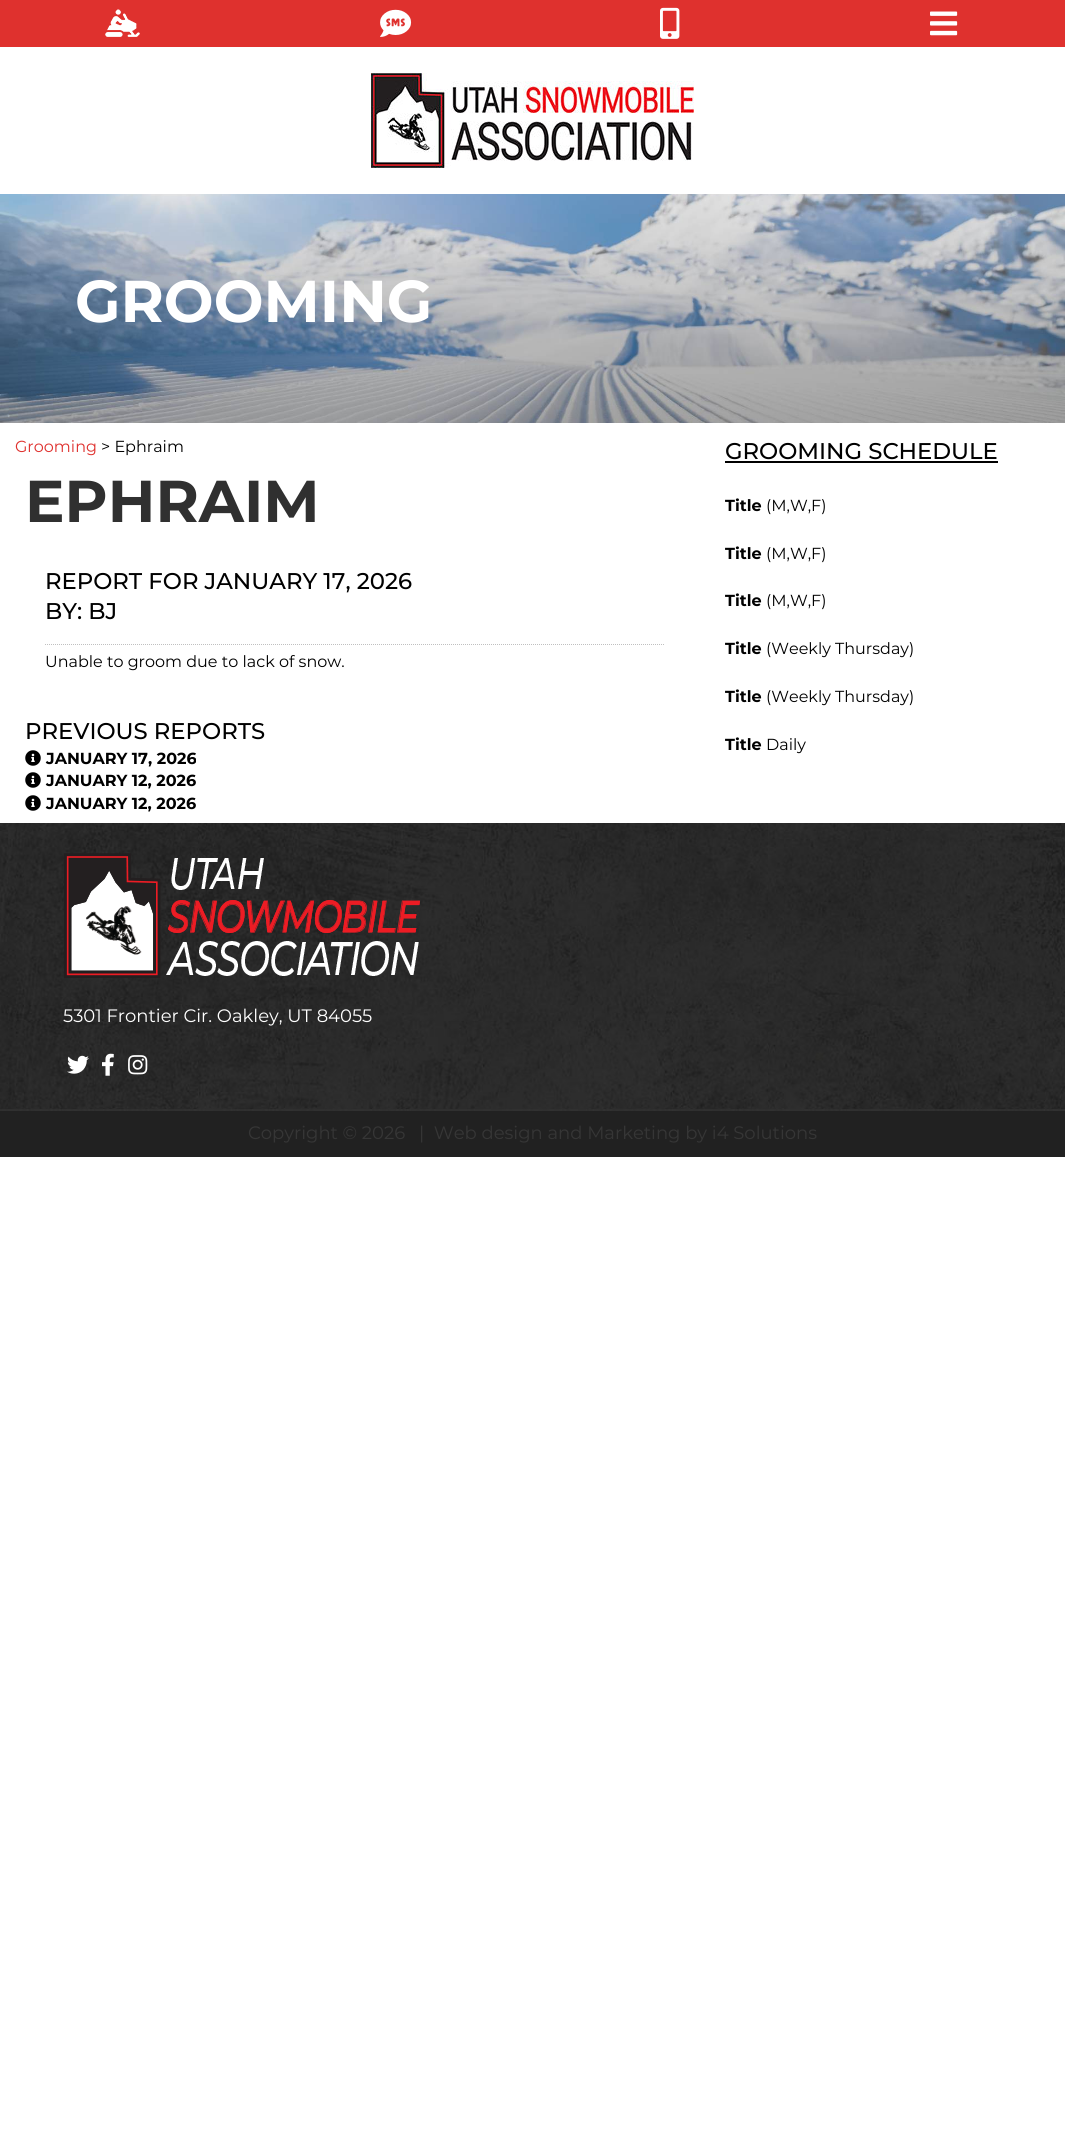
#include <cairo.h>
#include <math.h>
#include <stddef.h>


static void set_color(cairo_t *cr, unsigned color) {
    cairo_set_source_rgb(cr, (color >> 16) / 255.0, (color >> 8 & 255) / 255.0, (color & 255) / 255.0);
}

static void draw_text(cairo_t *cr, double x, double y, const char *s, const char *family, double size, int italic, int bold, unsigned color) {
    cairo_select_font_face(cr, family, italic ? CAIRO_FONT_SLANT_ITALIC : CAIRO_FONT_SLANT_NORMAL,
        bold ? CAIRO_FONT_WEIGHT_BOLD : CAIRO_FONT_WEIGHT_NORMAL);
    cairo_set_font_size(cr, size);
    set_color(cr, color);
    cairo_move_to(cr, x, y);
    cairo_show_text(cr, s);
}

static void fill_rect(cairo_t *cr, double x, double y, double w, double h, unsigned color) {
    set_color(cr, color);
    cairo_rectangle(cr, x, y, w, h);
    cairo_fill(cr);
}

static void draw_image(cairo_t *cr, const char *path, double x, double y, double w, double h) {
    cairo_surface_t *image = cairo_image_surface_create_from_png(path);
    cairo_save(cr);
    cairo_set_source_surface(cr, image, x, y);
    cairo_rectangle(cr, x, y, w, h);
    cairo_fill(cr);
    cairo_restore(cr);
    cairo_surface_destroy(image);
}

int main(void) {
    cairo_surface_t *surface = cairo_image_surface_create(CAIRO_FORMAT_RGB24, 1065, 2130);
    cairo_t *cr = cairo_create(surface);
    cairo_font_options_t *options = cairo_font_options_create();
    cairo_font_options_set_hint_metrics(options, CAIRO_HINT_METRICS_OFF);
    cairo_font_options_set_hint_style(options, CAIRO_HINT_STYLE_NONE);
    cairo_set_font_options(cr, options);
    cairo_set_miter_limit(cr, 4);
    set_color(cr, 0xFFFFFF);
    cairo_paint(cr);
    fill_rect(cr, 0, 0, 1065, 47, 0xDF312E);
    draw_image(cr, "assets/img1.png", 105, 9, 35, 28);
    draw_image(cr, "assets/img2.png", 380, 9, 32, 28);
    draw_image(cr, "assets/img3.png", 660, 7, 20, 32);
    draw_image(cr, "assets/img4.png", 930, 11, 28, 25);
    draw_image(cr, "assets/img5.png", 371, 73, 323, 95);
    draw_image(cr, "assets/img6.png", 0, 194, 1065, 229);
    draw_text(cr, 75, 322, "GROOMING", "Montserrat", 59, 0, 1, 0xFFFFFF);
    draw_text(cr, 15, 452, "Grooming", "Montserrat", 16, 0, 0, 0xDF312E);
    draw_text(cr, 101, 452, "> Ephraim", "Montserrat", 16, 0, 0, 0x000000);
    draw_text(cr, 25, 522, "EPHRAIM", "Montserrat", 59, 0, 1, 0x303030);
    draw_text(cr, 45, 589, "REPORT FOR JANUARY 17, 2026", "Montserrat Medium", 22.75, 0, 0, 0x000000);
    cairo_new_path(cr);
    cairo_move_to(cr, 45, 644.5);
    cairo_line_to(cr, 665, 644.5);
    set_color(cr, 0xC0C0C0);
    cairo_set_line_width(cr, 1);
    cairo_set_dash(cr, (double[]){1, 1}, 2, 0);
    cairo_stroke(cr);
    draw_text(cr, 45, 619, "BY: BJ", "Montserrat Medium", 22.75, 0, 0, 0x000000);
    draw_text(cr, 45, 667, "Unable to groom due to lack of snow.", "Montserrat", 16, 0, 0, 0x000000);
    draw_text(cr, 25, 739, "PREVIOUS REPORTS", "Montserrat Medium", 22.75, 0, 0, 0x000000);
    draw_image(cr, "assets/img7.png", 25, 750, 16, 16);
    draw_text(cr, 46, 764, "JANUARY 17, 2026", "Montserrat", 16, 0, 1, 0x000000);
    draw_image(cr, "assets/img7.png", 25, 772, 16, 16);
    draw_text(cr, 46, 786, "JANUARY 12, 2026", "Montserrat", 16, 0, 1, 0x000000);
    draw_image(cr, "assets/img7.png", 25, 795, 16, 16);
    draw_text(cr, 46, 809, "JANUARY 12, 2026", "Montserrat", 16, 0, 1, 0x000000);
    draw_text(cr, 725, 459, "GROOMING SCHEDULE", "Montserrat Medium", 22.75, 0, 0, 0x000000);
    fill_rect(cr, 725, 461, 273, 2, 0x000000);
    draw_text(cr, 725, 511, "Title", "Montserrat", 16, 0, 1, 0x000000);
    draw_text(cr, 766, 511, "(M,W,F)", "Montserrat", 16, 0, 0, 0x000000);
    draw_text(cr, 725, 559, "Title", "Montserrat", 16, 0, 1, 0x000000);
    draw_text(cr, 766, 559, "(M,W,F)", "Montserrat", 16, 0, 0, 0x000000);
    draw_text(cr, 725, 606, "Title", "Montserrat", 16, 0, 1, 0x000000);
    draw_text(cr, 766, 606, "(M,W,F)", "Montserrat", 16, 0, 0, 0x000000);
    draw_text(cr, 725, 654, "Title", "Montserrat", 16, 0, 1, 0x000000);
    draw_text(cr, 766, 654, "(Weekly Thursday)", "Montserrat", 16, 0, 0, 0x000000);
    draw_text(cr, 725, 702, "Title", "Montserrat", 16, 0, 1, 0x000000);
    draw_text(cr, 766, 702, "(Weekly Thursday)", "Montserrat", 16, 0, 0, 0x000000);
    draw_text(cr, 725, 750, "Title", "Montserrat", 16, 0, 1, 0x000000);
    draw_text(cr, 766, 750, "Daily", "Montserrat", 16, 0, 0, 0x000000);
    draw_image(cr, "assets/img8.png", 0, 823, 1065, 288);
    draw_image(cr, "assets/img9.png", 64, 853, 356, 125);
    draw_text(cr, 63, 1022, "5301 Frontier Cir. Oakley, UT 84055", "Montserrat", 18, 0, 0, 0xFFFFFF);
    draw_image(cr, "assets/img10.png", 67, 1055, 22, 19);
    draw_image(cr, "assets/img11.png", 102, 1053, 12, 23);
    draw_image(cr, "assets/img12.png", 128, 1055, 20, 20);
    fill_rect(cr, 0, 1111, 1065, 46, 0x212121);
    draw_text(cr, 248, 1139, "Copyright © 2026", "Montserrat", 18, 0, 0, 0x363636);
    draw_text(cr, 419, 1139, "|  Web design and Marketing by i4 Solutions", "Montserrat", 18, 0, 0, 0x363636);
    cairo_surface_write_to_png(surface, "output.png");
    cairo_font_options_destroy(options);
    cairo_destroy(cr);
    cairo_surface_destroy(surface);
    return 0;
}
